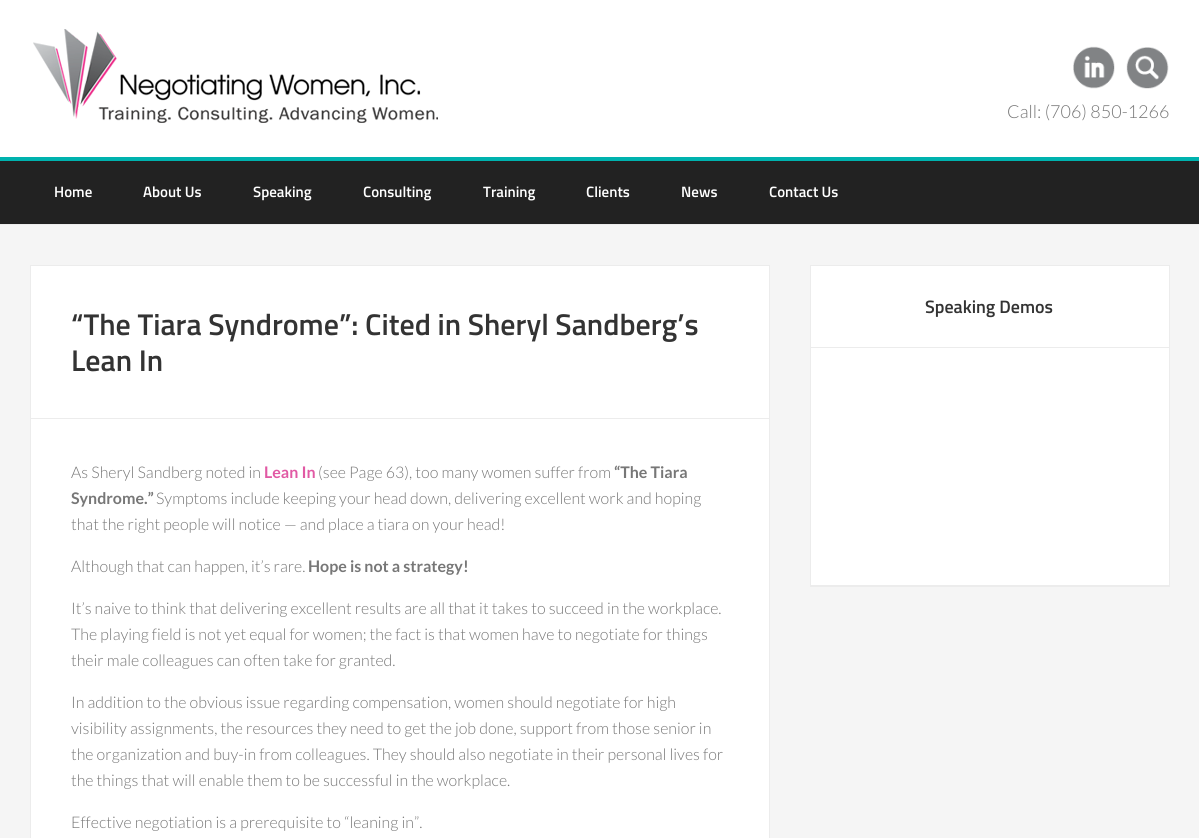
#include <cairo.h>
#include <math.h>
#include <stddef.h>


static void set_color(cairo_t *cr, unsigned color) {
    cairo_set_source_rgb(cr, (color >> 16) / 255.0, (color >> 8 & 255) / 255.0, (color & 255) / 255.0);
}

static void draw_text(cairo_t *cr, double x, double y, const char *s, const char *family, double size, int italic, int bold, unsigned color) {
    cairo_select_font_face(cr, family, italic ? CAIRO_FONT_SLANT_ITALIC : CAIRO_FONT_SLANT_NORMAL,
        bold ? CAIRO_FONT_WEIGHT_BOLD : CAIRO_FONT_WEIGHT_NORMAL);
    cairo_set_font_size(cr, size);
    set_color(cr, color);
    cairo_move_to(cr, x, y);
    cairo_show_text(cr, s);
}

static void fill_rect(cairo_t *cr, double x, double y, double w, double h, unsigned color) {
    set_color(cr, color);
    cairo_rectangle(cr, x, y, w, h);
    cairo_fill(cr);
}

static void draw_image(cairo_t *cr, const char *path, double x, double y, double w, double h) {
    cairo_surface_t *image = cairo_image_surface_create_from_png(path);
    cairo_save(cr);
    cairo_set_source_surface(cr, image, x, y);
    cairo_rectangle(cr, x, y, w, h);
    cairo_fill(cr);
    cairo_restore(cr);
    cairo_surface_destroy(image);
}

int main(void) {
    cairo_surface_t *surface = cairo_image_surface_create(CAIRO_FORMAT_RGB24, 1199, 838);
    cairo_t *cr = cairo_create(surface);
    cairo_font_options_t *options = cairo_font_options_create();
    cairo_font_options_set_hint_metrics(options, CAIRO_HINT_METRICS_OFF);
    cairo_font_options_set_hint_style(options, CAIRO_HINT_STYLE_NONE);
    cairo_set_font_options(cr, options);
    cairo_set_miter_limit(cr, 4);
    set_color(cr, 0xFFFFFF);
    cairo_paint(cr);
    draw_image(cr, "assets/img1.png", 33, 29, 405, 94);
    draw_image(cr, "assets/img2.png", 1073, 46, 42, 43);
    draw_image(cr, "assets/img3.png", 1126, 47, 43, 42);
    draw_text(cr, 1007, 118, "Call: (706) 850-1266", "Lato Light", 18, 0, 0, 0x777777);
    fill_rect(cr, 0, 161, 1199, 63, 0x222222);
    fill_rect(cr, 0, 157, 1199, 4, 0x00B2AE);
    draw_text(cr, 54, 197, "Home", "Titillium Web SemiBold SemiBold", 15, 0, 0, 0xFFFFFF);
    draw_text(cr, 143, 197, "About Us", "Titillium Web SemiBold SemiBold", 15, 0, 0, 0xFFFFFF);
    draw_text(cr, 253, 197, "Speaking", "Titillium Web SemiBold SemiBold", 15, 0, 0, 0xFFFFFF);
    draw_text(cr, 363, 197, "Consulting", "Titillium Web SemiBold SemiBold", 15, 0, 0, 0xFFFFFF);
    draw_text(cr, 483, 197, "Training", "Titillium Web SemiBold SemiBold", 15, 0, 0, 0xFFFFFF);
    draw_text(cr, 586, 197, "Clients", "Titillium Web SemiBold SemiBold", 15, 0, 0, 0xFFFFFF);
    draw_text(cr, 681, 197, "News", "Titillium Web SemiBold SemiBold", 15, 0, 0, 0xFFFFFF);
    draw_text(cr, 769, 197, "Contact Us", "Titillium Web SemiBold SemiBold", 15, 0, 0, 0xFFFFFF);
    fill_rect(cr, 0, 225, 1199, 613, 0xF5F5F5);
    fill_rect(cr, 0, 224, 1199, 1, 0xECECEC);
    fill_rect(cr, 810, 586, 360, 1, 0xECECEC);
    set_color(cr, 0xFFFFFF);
    cairo_rectangle(cr, 810.5, 265.5, 359, 320);
    cairo_fill_preserve(cr);
    set_color(cr, 0xECECEC);
    cairo_set_line_width(cr, 1);
    cairo_stroke(cr);
    fill_rect(cr, 811, 347, 358, 1, 0xECECEC);
    draw_text(cr, 925, 313, "Speaking Demos", "Titillium Web SemiBold SemiBold", 18, 0, 0, 0x333333);
    set_color(cr, 0xFFFFFF);
    cairo_rectangle(cr, 30.5, 265.5, 739, 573);
    cairo_fill_preserve(cr);
    set_color(cr, 0xECECEC);
    cairo_stroke(cr);
    fill_rect(cr, 31, 418, 738, 1, 0xECECEC);
    draw_text(cr, 71, 335, "“The Tiara Syndrome”: Cited in Sheryl Sandberg’s", "Titillium Web SemiBold SemiBold", 30, 0, 0, 0x333333);
    draw_text(cr, 71, 371, "Lean In", "Titillium Web SemiBold SemiBold", 30, 0, 0, 0x333333);
    draw_text(cr, 71, 478, "As Sheryl Sandberg noted in", "Lato Light", 16, 0, 0, 0x777777);
    draw_text(cr, 264, 478, "Lean In", "Lato", 16, 0, 1, 0xE159A4);
    draw_text(cr, 318, 478, "(see Page 63), too many women suffer from", "Lato Light", 16, 0, 0, 0x777777);
    draw_text(cr, 614, 478, "“The Tiara", "Lato", 16, 0, 1, 0x777777);
    draw_text(cr, 71, 504, "Syndrome.”", "Lato", 16, 0, 1, 0x777777);
    draw_text(cr, 156, 504, "Symptoms include keeping your head down, delivering excellent work and hoping", "Lato Light", 16, 0, 0, 0x777777);
    draw_text(cr, 71, 530, "that the right people will notice — and place a tiara on your head!", "Lato Light", 16, 0, 0, 0x777777);
    draw_text(cr, 71, 572, "Although that can happen, it’s rare.", "Lato Light", 16, 0, 0, 0x777777);
    draw_text(cr, 308, 572, "Hope is not a strategy!", "Lato", 16, 0, 1, 0x777777);
    draw_text(cr, 71, 614, "It’s naive to think that delivering excellent results are all that it takes to succeed in the workplace.", "Lato Light", 16, 0, 0, 0x777777);
    draw_text(cr, 71, 640, "The playing field is not yet equal for women; the fact is that women have to negotiate for things", "Lato Light", 16, 0, 0, 0x777777);
    draw_text(cr, 71, 666, "their male colleagues can often take for granted.", "Lato Light", 16, 0, 0, 0x777777);
    draw_text(cr, 71, 708, "In addition to the obvious issue regarding compensation, women should negotiate for high", "Lato Light", 16, 0, 0, 0x777777);
    draw_text(cr, 71, 734, "visibility assignments, the resources they need to get the job done, support from those senior in", "Lato Light", 16, 0, 0, 0x777777);
    draw_text(cr, 71, 760, "the organization and buy-in from colleagues. They should also negotiate in their personal lives for", "Lato Light", 16, 0, 0, 0x777777);
    draw_text(cr, 71, 786, "the things that will enable them to be successful in the workplace.", "Lato Light", 16, 0, 0, 0x777777);
    draw_text(cr, 71, 828, "Effective negotiation is a prerequisite to “leaning in”.", "Lato Light", 16, 0, 0, 0x777777);
    cairo_surface_write_to_png(surface, "output.png");
    cairo_font_options_destroy(options);
    cairo_destroy(cr);
    cairo_surface_destroy(surface);
    return 0;
}
